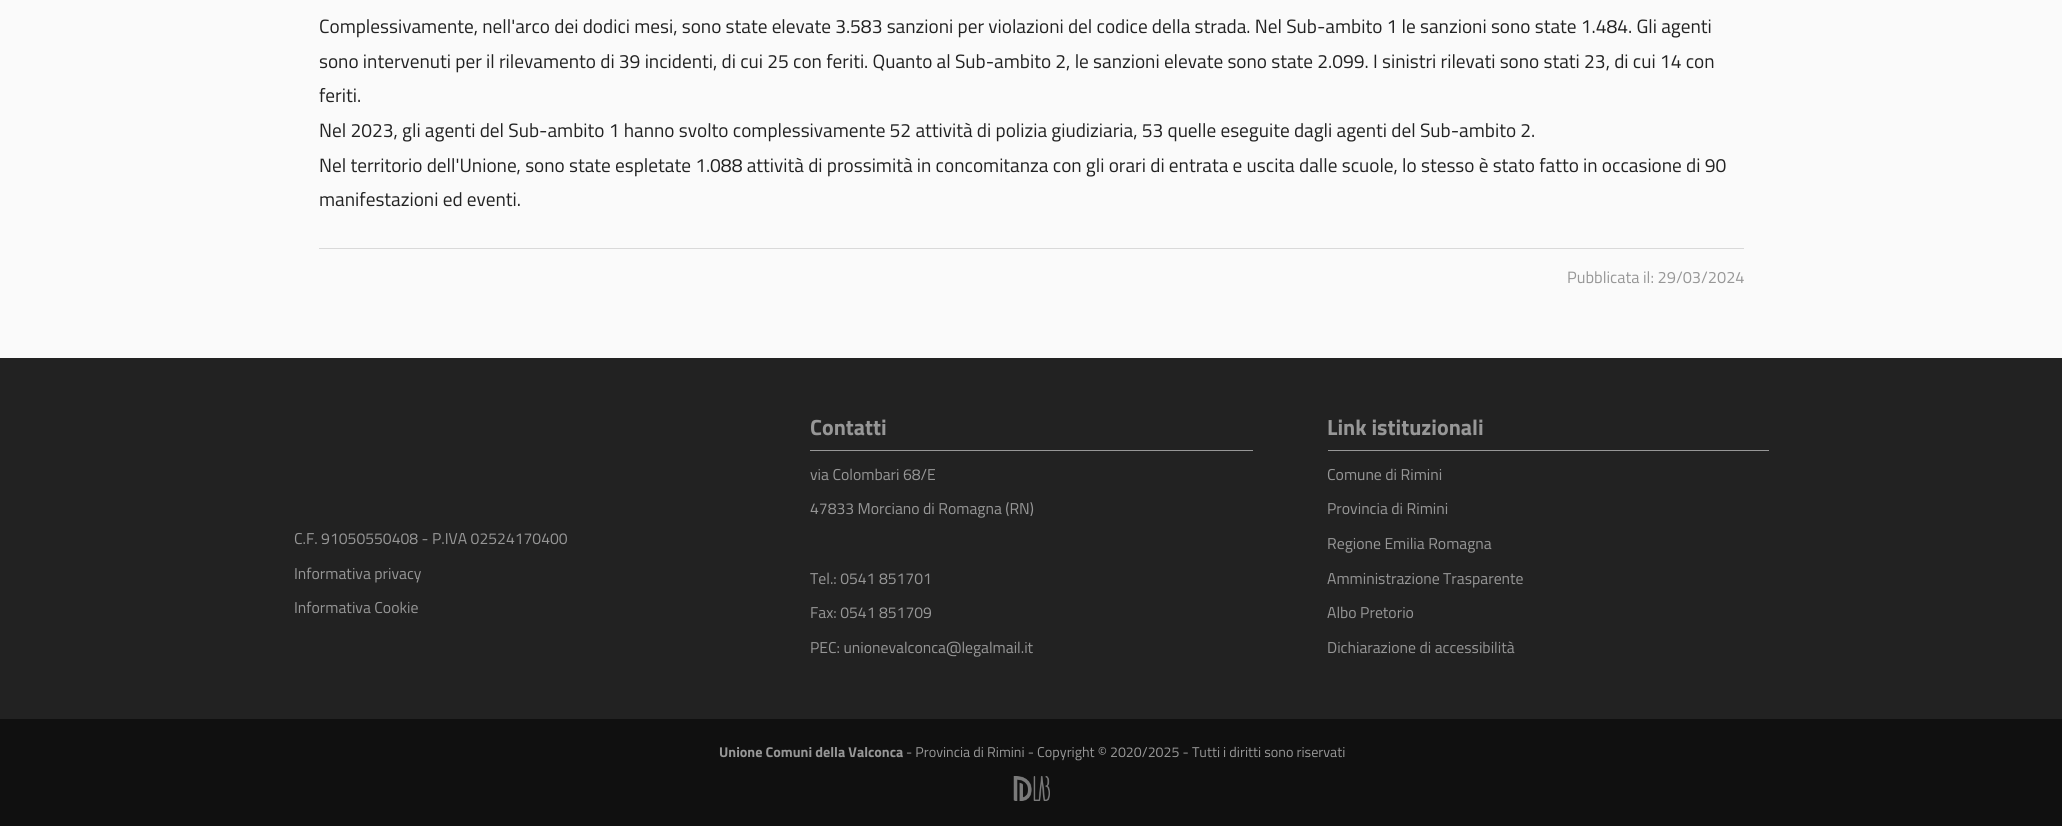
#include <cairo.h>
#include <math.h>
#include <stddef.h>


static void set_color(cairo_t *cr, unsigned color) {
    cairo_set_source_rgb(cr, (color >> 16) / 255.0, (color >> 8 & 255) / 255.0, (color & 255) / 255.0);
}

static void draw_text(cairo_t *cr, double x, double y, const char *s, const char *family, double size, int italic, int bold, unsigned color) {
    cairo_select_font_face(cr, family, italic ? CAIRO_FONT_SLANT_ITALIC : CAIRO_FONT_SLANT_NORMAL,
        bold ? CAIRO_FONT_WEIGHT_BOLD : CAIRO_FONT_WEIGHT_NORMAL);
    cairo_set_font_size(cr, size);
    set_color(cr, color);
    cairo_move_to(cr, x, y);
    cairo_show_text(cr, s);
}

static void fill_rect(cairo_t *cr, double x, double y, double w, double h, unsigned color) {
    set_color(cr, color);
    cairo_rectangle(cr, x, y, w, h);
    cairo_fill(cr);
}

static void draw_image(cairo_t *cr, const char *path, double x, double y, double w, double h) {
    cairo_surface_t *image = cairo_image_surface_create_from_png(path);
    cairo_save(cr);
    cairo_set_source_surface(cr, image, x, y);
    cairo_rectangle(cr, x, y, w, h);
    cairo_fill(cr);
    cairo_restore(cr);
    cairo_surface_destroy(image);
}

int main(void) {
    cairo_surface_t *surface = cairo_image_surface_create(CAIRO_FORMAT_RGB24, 2062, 826);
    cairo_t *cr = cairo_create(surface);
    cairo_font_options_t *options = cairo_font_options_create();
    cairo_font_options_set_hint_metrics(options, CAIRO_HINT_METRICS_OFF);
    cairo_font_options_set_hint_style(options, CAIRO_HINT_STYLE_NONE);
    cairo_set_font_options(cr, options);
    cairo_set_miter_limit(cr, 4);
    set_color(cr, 0xFAFAFA);
    cairo_paint(cr);
    draw_text(cr, 319, 33, "Complessivamente, nell'arco dei dodici mesi, sono state elevate 3.583 sanzioni per violazioni del codice della strada. Nel Sub-ambito 1 le sanzioni sono state 1.484. Gli agenti", "Titillium Web", 19.25, 0, 0, 0x222222);
    draw_text(cr, 319, 68, "sono intervenuti per il rilevamento di 39 incidenti, di cui 25 con feriti. Quanto al Sub-ambito 2, le sanzioni elevate sono state 2.099. I sinistri rilevati sono stati 23, di cui 14 con", "Titillium Web", 19.25, 0, 0, 0x222222);
    draw_text(cr, 319, 102, "feriti.", "Titillium Web", 19.25, 0, 0, 0x222222);
    draw_text(cr, 319, 137, "Nel 2023, gli agenti del Sub-ambito 1 hanno svolto complessivamente 52 attività di polizia giudiziaria, 53 quelle eseguite dagli agenti del Sub-ambito 2.", "Titillium Web", 19.25, 0, 0, 0x222222);
    draw_text(cr, 319, 172, "Nel territorio dell'Unione, sono state espletate 1.088 attività di prossimità in concomitanza con gli orari di entrata e uscita dalle scuole, lo stesso è stato fatto in occasione di 90", "Titillium Web", 19.25, 0, 0, 0x222222);
    draw_text(cr, 319, 206, "manifestazioni ed eventi.", "Titillium Web", 19.25, 0, 0, 0x222222);
    fill_rect(cr, 319, 248, 1425, 1, 0xD9D9D9);
    draw_text(cr, 1567, 283, "Pubblicata il: 29/03/2024", "Titillium Web", 16.4, 0, 0, 0x979797);
    fill_rect(cr, 0, 358, 2062, 361, 0x222222);
    draw_text(cr, 294, 544, "C.F. 91050550408 - P.IVA 02524170400", "Titillium Web", 15.75, 0, 0, 0x979797);
    draw_text(cr, 294, 579, "Informativa privacy", "Titillium Web", 15.75, 0, 0, 0x979797);
    draw_text(cr, 294, 613, "Informativa Cookie", "Titillium Web", 15.75, 0, 0, 0x979797);
    draw_text(cr, 810, 435, "Contatti", "Titillium Web", 22, 0, 1, 0x979797);
    fill_rect(cr, 810, 450, 443, 1, 0x979797);
    draw_text(cr, 810, 480, "via Colombari 68/E", "Titillium Web", 15.75, 0, 0, 0x979797);
    draw_text(cr, 810, 514, "47833 Morciano di Romagna (RN)", "Titillium Web", 15.75, 0, 0, 0x979797);
    draw_text(cr, 810, 584, "Tel.: 0541 851701", "Titillium Web", 15.75, 0, 0, 0x979797);
    draw_text(cr, 810, 618, "Fax: 0541 851709", "Titillium Web", 15.75, 0, 0, 0x979797);
    draw_text(cr, 810, 653, "PEC: unionevalconca@legalmail.it", "Titillium Web", 15.75, 0, 0, 0x979797);
    draw_text(cr, 1327, 435, "Link istituzionali", "Titillium Web", 22, 0, 1, 0x979797);
    fill_rect(cr, 1328, 450, 441, 1, 0x979797);
    draw_text(cr, 1327, 480, "Comune di Rimini", "Titillium Web", 15.75, 0, 0, 0x979797);
    draw_text(cr, 1327, 514, "Provincia di Rimini", "Titillium Web", 15.75, 0, 0, 0x979797);
    draw_text(cr, 1327, 549, "Regione Emilia Romagna", "Titillium Web", 15.75, 0, 0, 0x979797);
    draw_text(cr, 1327, 584, "Amministrazione Trasparente", "Titillium Web", 15.75, 0, 0, 0x979797);
    draw_text(cr, 1327, 618, "Albo Pretorio", "Titillium Web", 15.75, 0, 0, 0x979797);
    draw_text(cr, 1327, 653, "Dichiarazione di accessibilità", "Titillium Web", 15.75, 0, 0, 0x979797);
    fill_rect(cr, 0, 719, 2062, 107, 0x101010);
    draw_text(cr, 719, 757, "Unione Comuni della Valconca", "Titillium Web", 14.2, 0, 1, 0x979797);
    draw_text(cr, 906, 757, "- Provincia di Rimini - Copyright © 2020/2025 - Tutti i diritti sono riservati", "Titillium Web", 14.2, 0, 0, 0x979797);
    draw_image(cr, "assets/img1.png", 1013, 776, 37, 25);
    cairo_surface_write_to_png(surface, "output.png");
    cairo_font_options_destroy(options);
    cairo_destroy(cr);
    cairo_surface_destroy(surface);
    return 0;
}
